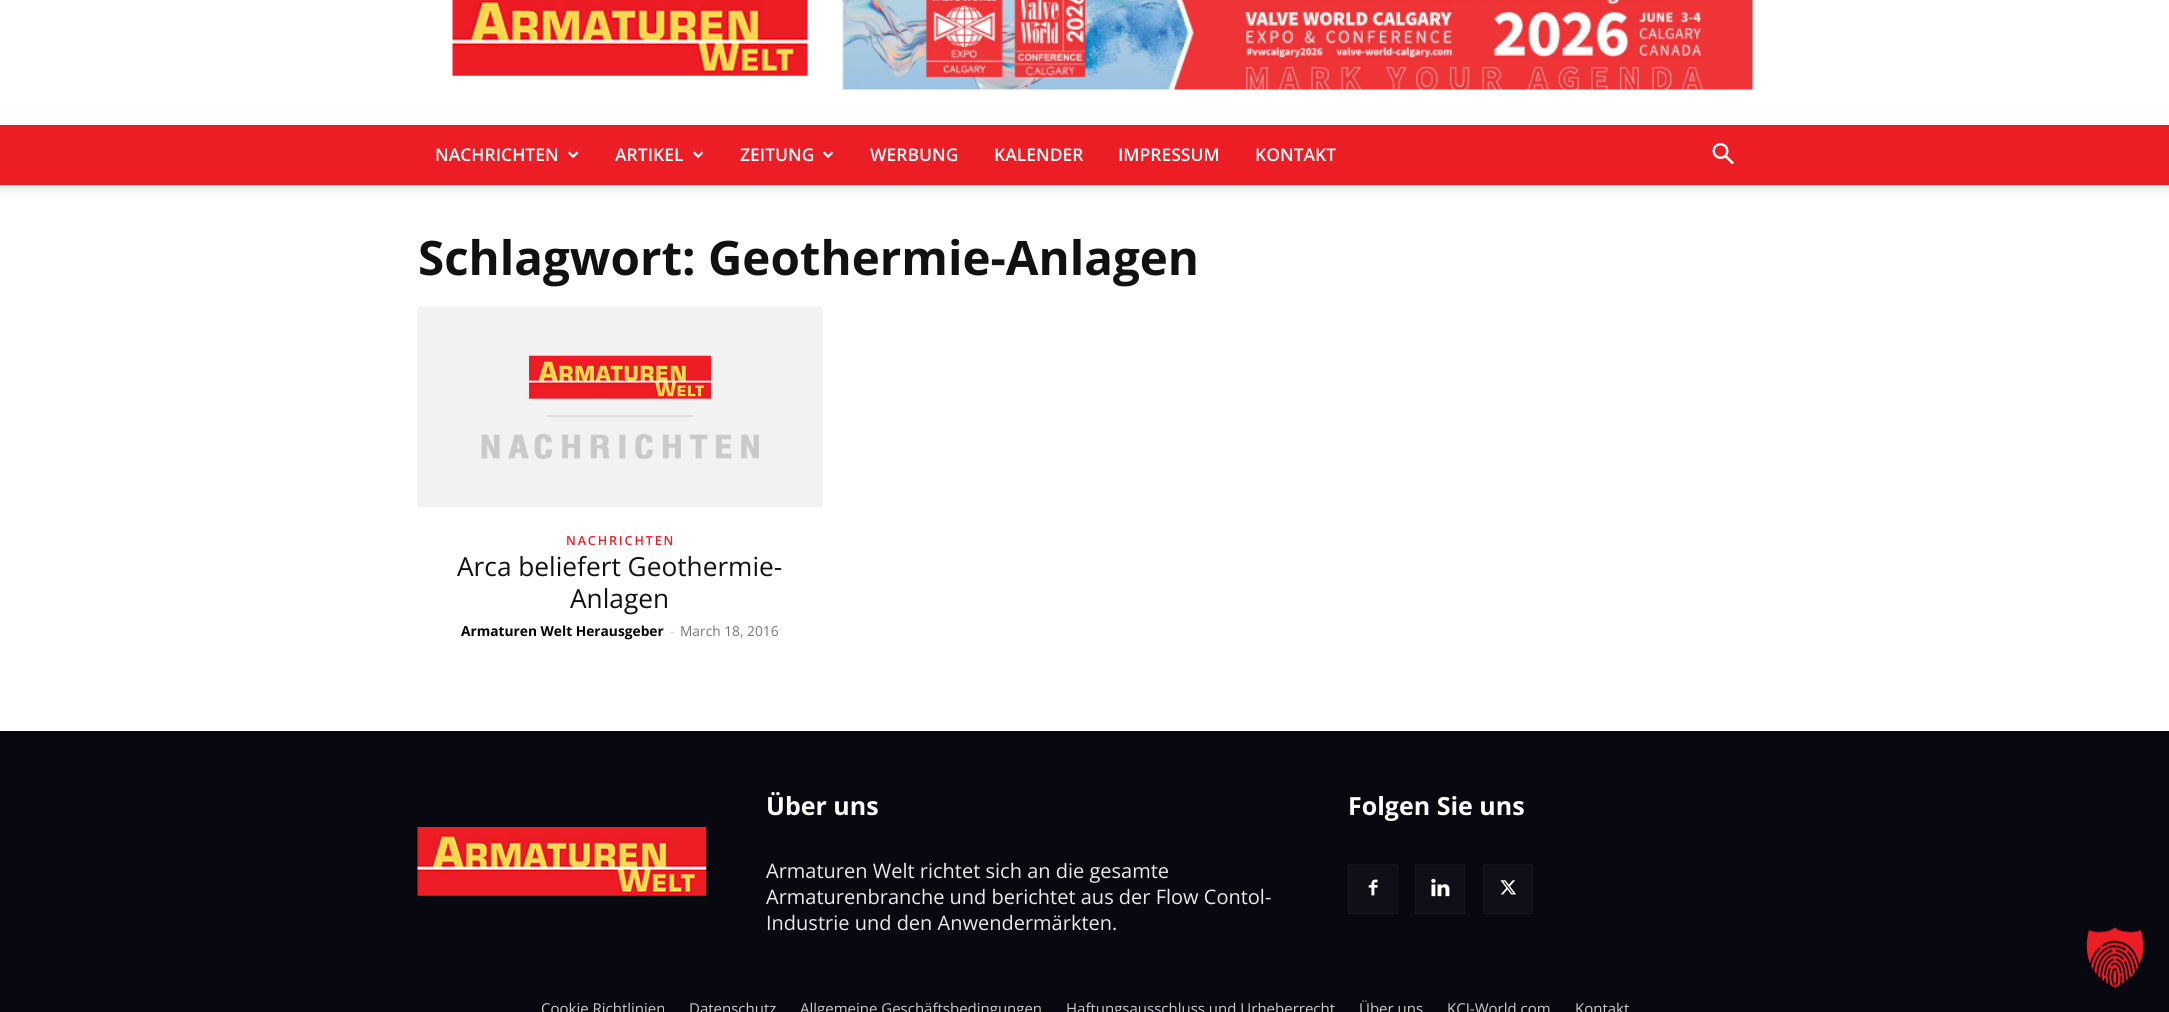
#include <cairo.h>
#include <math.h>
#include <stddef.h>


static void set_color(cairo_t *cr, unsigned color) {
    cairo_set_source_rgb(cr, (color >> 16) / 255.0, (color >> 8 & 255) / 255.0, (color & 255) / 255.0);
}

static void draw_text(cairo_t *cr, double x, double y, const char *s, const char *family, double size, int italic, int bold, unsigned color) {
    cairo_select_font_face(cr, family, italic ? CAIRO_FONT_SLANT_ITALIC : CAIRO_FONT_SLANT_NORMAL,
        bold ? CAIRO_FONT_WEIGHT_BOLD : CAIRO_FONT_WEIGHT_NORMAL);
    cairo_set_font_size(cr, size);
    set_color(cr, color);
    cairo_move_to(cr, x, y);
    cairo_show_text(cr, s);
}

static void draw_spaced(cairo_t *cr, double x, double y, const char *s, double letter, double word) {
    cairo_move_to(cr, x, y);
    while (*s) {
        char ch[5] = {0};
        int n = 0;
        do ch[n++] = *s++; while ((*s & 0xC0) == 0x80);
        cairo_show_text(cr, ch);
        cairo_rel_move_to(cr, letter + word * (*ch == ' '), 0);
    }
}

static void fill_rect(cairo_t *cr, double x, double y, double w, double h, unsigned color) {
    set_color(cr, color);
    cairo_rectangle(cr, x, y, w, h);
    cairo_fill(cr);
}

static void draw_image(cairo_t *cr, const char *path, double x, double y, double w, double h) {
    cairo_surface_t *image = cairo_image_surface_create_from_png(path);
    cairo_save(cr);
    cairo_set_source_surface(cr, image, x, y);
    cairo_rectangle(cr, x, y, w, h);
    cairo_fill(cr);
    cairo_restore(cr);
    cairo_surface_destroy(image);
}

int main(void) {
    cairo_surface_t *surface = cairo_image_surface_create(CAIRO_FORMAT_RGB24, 2169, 1012);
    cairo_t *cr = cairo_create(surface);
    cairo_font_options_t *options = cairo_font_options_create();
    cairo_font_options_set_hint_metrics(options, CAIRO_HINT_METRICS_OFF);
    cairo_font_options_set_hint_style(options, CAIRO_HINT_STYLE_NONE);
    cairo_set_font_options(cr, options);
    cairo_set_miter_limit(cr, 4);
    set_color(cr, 0xFFFFFF);
    cairo_paint(cr);
    draw_image(cr, "assets/img1.png", 452, 0, 356, 76);
    draw_image(cr, "assets/img2.png", 842, 0, 911, 90);
    fill_rect(cr, 0, 125, 2169, 60, 0xEC1D24);
    draw_text(cr, 435, 161, "NACHRICHTEN", "Open Sans SemiBold", 17.5, 0, 0, 0xFFFFFF);
    draw_image(cr, "assets/img3.png", 568, 151, 11, 8);
    draw_text(cr, 615, 161, "ARTIKEL", "Open Sans SemiBold", 17.5, 0, 0, 0xFFFFFF);
    draw_image(cr, "assets/img3.png", 693, 151, 11, 8);
    draw_text(cr, 740, 161, "ZEITUNG", "Open Sans SemiBold", 17.5, 0, 0, 0xFFFFFF);
    draw_image(cr, "assets/img3.png", 823, 151, 11, 8);
    draw_text(cr, 870, 161, "WERBUNG", "Open Sans SemiBold", 17.5, 0, 0, 0xFFFFFF);
    draw_text(cr, 994, 161, "KALENDER", "Open Sans SemiBold", 17.5, 0, 0, 0xFFFFFF);
    draw_text(cr, 1118, 161, "IMPRESSUM", "Open Sans SemiBold", 17.5, 0, 0, 0xFFFFFF);
    draw_text(cr, 1255, 161, "KONTAKT", "Open Sans SemiBold", 17.5, 0, 0, 0xFFFFFF);
    draw_image(cr, "assets/img4.png", 1712, 143, 22, 22);
    draw_image(cr, "assets/img5.png", 0, 184, 2169, 11);
    draw_text(cr, 418, 275, "Schlagwort: Geothermie-Anlagen", "Open Sans", 47.5, 0, 1, 0x111111);
    draw_image(cr, "assets/img6.png", 417, 307, 406, 200);
    cairo_select_font_face(cr, "Open Sans SemiBold", CAIRO_FONT_SLANT_NORMAL, CAIRO_FONT_WEIGHT_NORMAL);
    cairo_set_font_size(cr, 12.5);
    set_color(cr, 0xEC1D24);
    draw_spaced(cr, 566, 545, "NACHRICHTEN", 1.9, 0);
    draw_text(cr, 457, 576, "Arca beliefert Geothermie-", "Open Sans", 26.25, 0, 0, 0x111111);
    draw_text(cr, 570, 608, "Anlagen", "Open Sans", 26.25, 0, 0, 0x111111);
    draw_text(cr, 461, 636, "Armaturen Welt Herausgeber", "Open Sans", 13.75, 0, 1, 0x000000);
    draw_text(cr, 670, 636, "-", "Open Sans", 13.75, 0, 0, 0xCCCCCC);
    draw_text(cr, 680, 636, "March 18, 2016", "Open Sans", 13.75, 0, 0, 0x767676);
    fill_rect(cr, 0, 731, 2169, 281, 0x080810);
    draw_text(cr, 766, 815, "Über uns", "Open Sans", 25, 0, 1, 0xFFFFFF);
    draw_text(cr, 766, 878, "Armaturen Welt richtet sich an die gesamte", "Open Sans", 20, 0, 0, 0xEAEAEA);
    draw_text(cr, 766, 904, "Armaturenbranche und berichtet aus der Flow Contol-", "Open Sans", 20, 0, 0, 0xEAEAEA);
    draw_text(cr, 766, 930, "Industrie und den Anwendermärkten.", "Open Sans", 20, 0, 0, 0xEAEAEA);
    draw_text(cr, 1348, 815, "Folgen Sie uns", "Open Sans", 25, 0, 1, 0xFFFFFF);
    fill_rect(cr, 1349, 865, 48, 48, 0x0F0F17);
    draw_image(cr, "assets/img7.png", 1368, 879, 10, 17);
    cairo_rectangle(cr, 1348.5, 864.5, 49, 49);
    set_color(cr, 0x16161E);
    cairo_set_line_width(cr, 1);
    cairo_stroke(cr);
    fill_rect(cr, 1416, 865, 48, 48, 0x0F0F17);
    draw_image(cr, "assets/img8.png", 1431, 878, 19, 19);
    cairo_rectangle(cr, 1415.5, 864.5, 49, 49);
    set_color(cr, 0x16161E);
    cairo_stroke(cr);
    fill_rect(cr, 1484, 865, 48, 48, 0x0F0F17);
    draw_image(cr, "assets/img9.png", 1500, 880, 16, 15);
    cairo_rectangle(cr, 1483.5, 864.5, 49, 49);
    set_color(cr, 0x16161E);
    cairo_stroke(cr);
    draw_image(cr, "assets/img10.png", 417, 827, 290, 69);
    draw_text(cr, 541, 1014, "Cookie Richtlinien", "Open Sans", 15, 0, 0, 0xCCCCCC);
    draw_text(cr, 689, 1014, "Datenschutz", "Open Sans", 15, 0, 0, 0xCCCCCC);
    draw_text(cr, 800, 1014, "Allgemeine Geschäftsbedingungen", "Open Sans", 15, 0, 0, 0xCCCCCC);
    draw_text(cr, 1066, 1014, "Haftungsausschluss und Urheberrecht", "Open Sans", 15, 0, 0, 0xCCCCCC);
    draw_text(cr, 1359, 1014, "Über uns", "Open Sans", 15, 0, 0, 0xCCCCCC);
    draw_text(cr, 1447, 1014, "KCI-World.com", "Open Sans", 15, 0, 0, 0xCCCCCC);
    draw_text(cr, 1575, 1014, "Kontakt", "Open Sans", 15, 0, 0, 0xCCCCCC);
    draw_image(cr, "assets/img11.png", 2086, 927, 58, 61);
    cairo_surface_write_to_png(surface, "output.png");
    cairo_font_options_destroy(options);
    cairo_destroy(cr);
    cairo_surface_destroy(surface);
    return 0;
}
